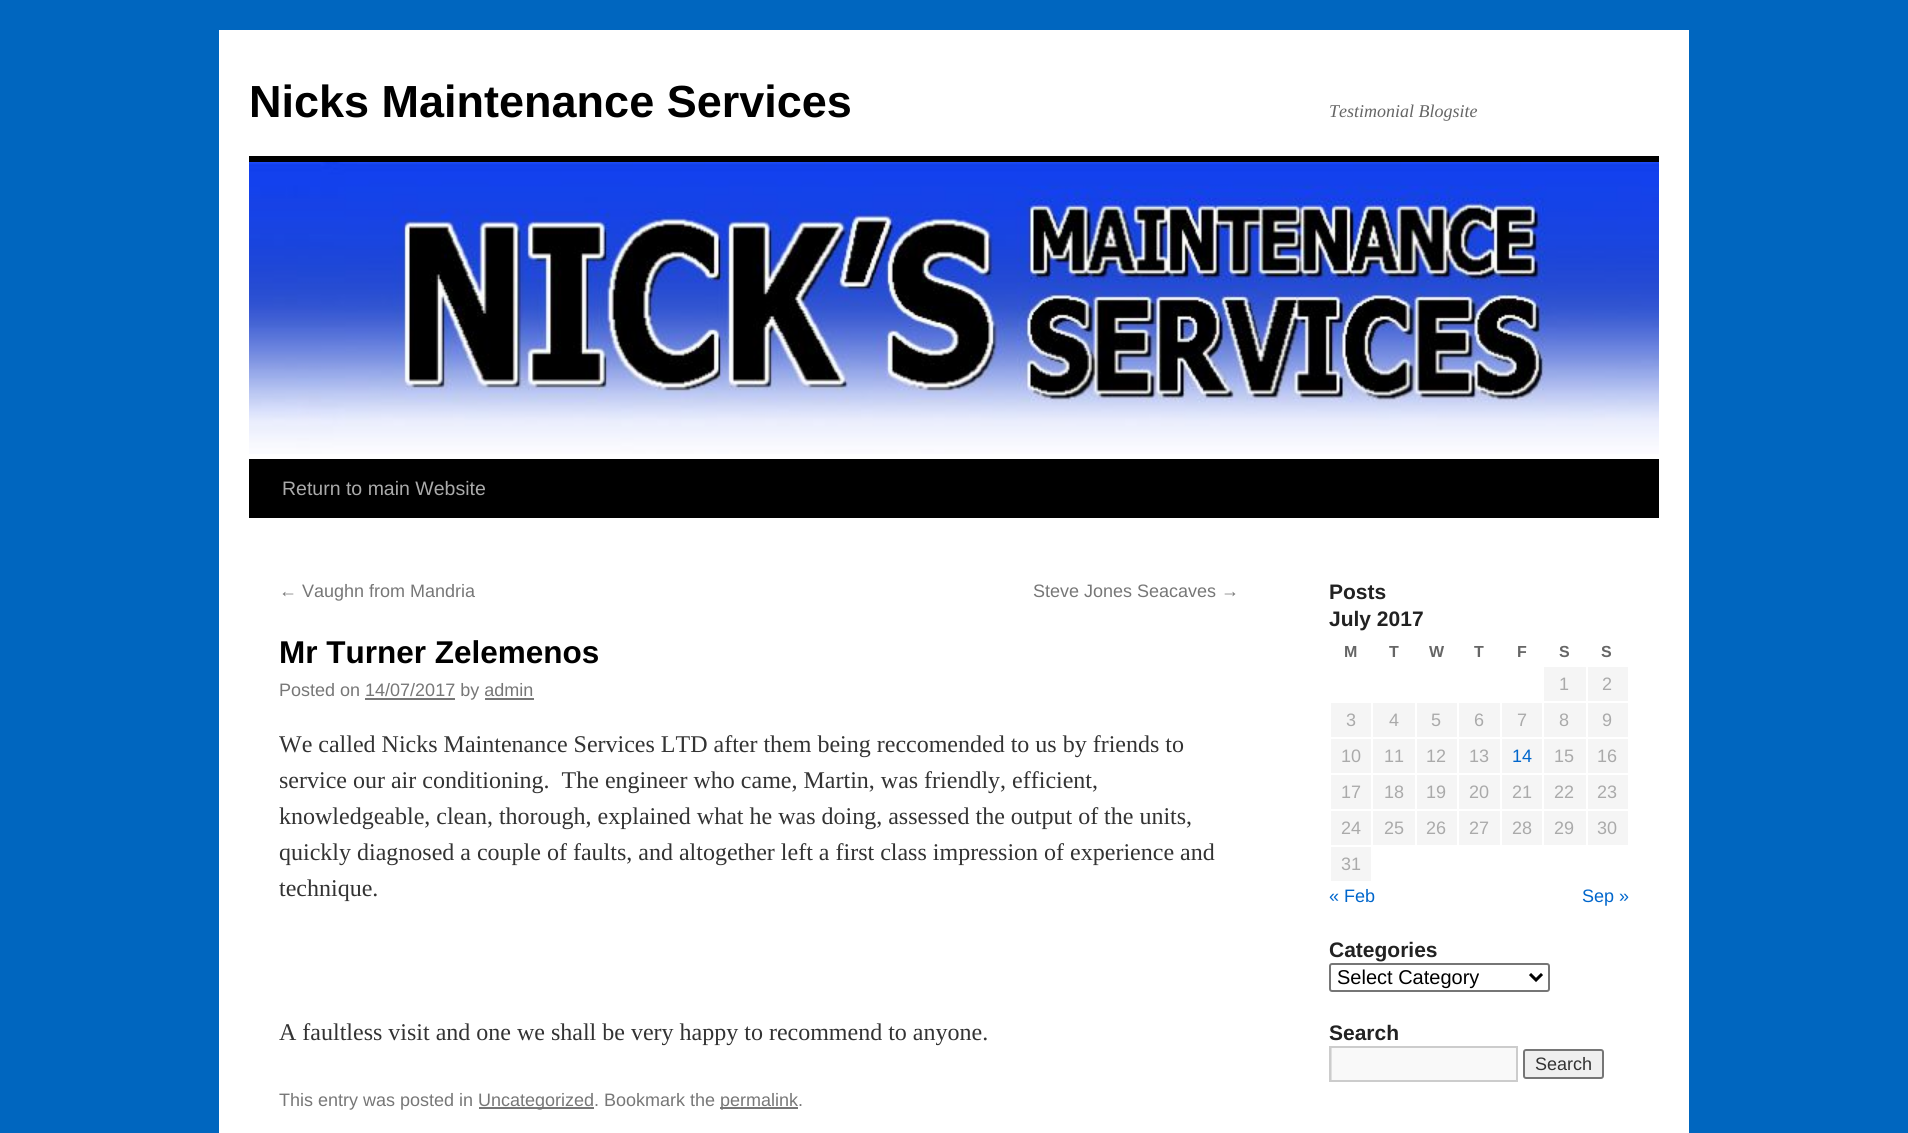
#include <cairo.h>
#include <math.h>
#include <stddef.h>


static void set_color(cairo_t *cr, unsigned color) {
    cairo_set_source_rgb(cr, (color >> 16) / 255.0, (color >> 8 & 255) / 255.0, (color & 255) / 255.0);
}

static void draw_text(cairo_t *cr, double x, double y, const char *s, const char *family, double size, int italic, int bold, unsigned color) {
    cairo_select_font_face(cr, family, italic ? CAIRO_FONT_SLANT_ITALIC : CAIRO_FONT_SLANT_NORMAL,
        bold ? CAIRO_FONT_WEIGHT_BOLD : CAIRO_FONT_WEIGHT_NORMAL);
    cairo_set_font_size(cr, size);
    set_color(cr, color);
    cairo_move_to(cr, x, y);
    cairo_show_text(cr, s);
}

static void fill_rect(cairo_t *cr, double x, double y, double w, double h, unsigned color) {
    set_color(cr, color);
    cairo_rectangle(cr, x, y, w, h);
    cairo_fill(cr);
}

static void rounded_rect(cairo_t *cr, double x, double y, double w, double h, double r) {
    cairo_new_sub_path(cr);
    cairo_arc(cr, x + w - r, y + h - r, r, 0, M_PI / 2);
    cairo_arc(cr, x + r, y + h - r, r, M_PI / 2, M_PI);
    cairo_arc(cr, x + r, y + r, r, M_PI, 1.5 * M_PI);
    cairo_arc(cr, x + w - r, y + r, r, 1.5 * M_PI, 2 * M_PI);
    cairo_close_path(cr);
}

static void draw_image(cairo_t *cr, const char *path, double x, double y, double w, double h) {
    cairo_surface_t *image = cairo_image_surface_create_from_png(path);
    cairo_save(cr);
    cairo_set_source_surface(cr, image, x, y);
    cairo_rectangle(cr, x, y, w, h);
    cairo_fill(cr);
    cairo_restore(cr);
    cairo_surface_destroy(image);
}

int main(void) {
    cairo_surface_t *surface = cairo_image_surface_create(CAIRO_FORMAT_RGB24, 1908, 1133);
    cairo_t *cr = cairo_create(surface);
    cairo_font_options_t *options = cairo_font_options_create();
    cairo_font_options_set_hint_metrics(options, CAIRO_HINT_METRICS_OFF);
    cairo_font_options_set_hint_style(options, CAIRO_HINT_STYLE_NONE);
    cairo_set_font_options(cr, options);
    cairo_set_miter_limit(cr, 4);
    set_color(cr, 0x0066BF);
    cairo_paint(cr);
    fill_rect(cr, 219, 30, 1470, 1103, 0xFFFFFF);
    draw_text(cr, 249, 117, "Nicks Maintenance Services", "Liberation Sans", 45, 0, 1, 0x000000);
    draw_text(cr, 1329, 117, "Testimonial Blogsite", "Liberation Serif", 18, 1, 0, 0x666666);
    fill_rect(cr, 249, 156, 1410, 6, 0x000000);
    fill_rect(cr, 249, 459, 1410, 59, 0x000000);
    draw_image(cr, "assets/img1.png", 249, 162, 1410, 292);
    draw_text(cr, 282, 495, "Return to main Website", "Liberation Sans", 19.5, 0, 0, 0xAAAAAA);
    draw_text(cr, 279, 597, "← Vaughn from Mandria", "Liberation Sans", 18, 0, 0, 0x777777);
    draw_text(cr, 1033, 597, "Steve Jones Seacaves →", "Liberation Sans", 18, 0, 0, 0x777777);
    draw_text(cr, 279, 663, "Mr Turner Zelemenos", "Liberation Sans", 31.5, 0, 1, 0x000000);
    draw_text(cr, 279, 696, "Posted on 14/07/2017 by admin", "Liberation Sans", 18, 0, 0, 0x777777);
    fill_rect(cr, 365, 698, 90, 2, 0x777777);
    fill_rect(cr, 485, 698, 49, 2, 0x777777);
    draw_text(cr, 279, 752, "We called Nicks Maintenance Services LTD after them being reccomended to us by friends to", "Liberation Serif", 24, 0, 0, 0x333333);
    draw_text(cr, 279, 788, "service our air conditioning.  The engineer who came, Martin, was friendly, efficient,", "Liberation Serif", 24, 0, 0, 0x333333);
    draw_text(cr, 279, 824, "knowledgeable, clean, thorough, explained what he was doing, assessed the output of the units,", "Liberation Serif", 24, 0, 0, 0x333333);
    draw_text(cr, 279, 860, "quickly diagnosed a couple of faults, and altogether left a first class impression of experience and", "Liberation Serif", 24, 0, 0, 0x333333);
    draw_text(cr, 279, 896, "technique.", "Liberation Serif", 24, 0, 0, 0x333333);
    draw_text(cr, 279, 1040, "A faultless visit and one we shall be very happy to recommend to anyone.", "Liberation Serif", 24, 0, 0, 0x333333);
    draw_text(cr, 279, 1106, "This entry was posted in", "Liberation Sans", 18, 0, 0, 0x777777);
    fill_rect(cr, 479, 1107, 115, 2, 0x777777);
    draw_text(cr, 478, 1106, "Uncategorized. Bookmark the", "Liberation Sans", 18, 0, 0, 0x777777);
    fill_rect(cr, 720, 1107, 78, 2, 0x777777);
    draw_text(cr, 720, 1106, "permalink.", "Liberation Sans", 18, 0, 0, 0x777777);
    draw_text(cr, 1329, 599, "Posts", "Liberation Sans", 21, 0, 1, 0x222222);
    draw_text(cr, 1329, 626, "July 2017", "Liberation Sans", 21, 0, 1, 0x222222);
    draw_text(cr, 1344, 657, "M", "Liberation Sans", 16, 0, 1, 0x666666);
    draw_text(cr, 1389, 657, "T", "Liberation Sans", 16, 0, 1, 0x666666);
    draw_text(cr, 1429, 657, "W", "Liberation Sans", 16, 0, 1, 0x666666);
    draw_text(cr, 1474, 657, "T", "Liberation Sans", 16, 0, 1, 0x666666);
    draw_text(cr, 1517, 657, "F", "Liberation Sans", 16, 0, 1, 0x666666);
    draw_text(cr, 1559, 657, "S", "Liberation Sans", 16, 0, 1, 0x666666);
    draw_text(cr, 1601, 657, "S", "Liberation Sans", 16, 0, 1, 0x666666);
    fill_rect(cr, 1544, 667, 42, 34, 0xF5F5F5);
    draw_text(cr, 1559, 690, "1", "Liberation Sans", 18, 0, 0, 0xAAAAAA);
    fill_rect(cr, 1588, 667, 40, 34, 0xF5F5F5);
    draw_text(cr, 1602, 690, "2", "Liberation Sans", 18, 0, 0, 0xAAAAAA);
    fill_rect(cr, 1331, 703, 40, 34, 0xF5F5F5);
    draw_text(cr, 1346, 726, "3", "Liberation Sans", 18, 0, 0, 0xAAAAAA);
    fill_rect(cr, 1373, 703, 42, 34, 0xF5F5F5);
    draw_text(cr, 1389, 726, "4", "Liberation Sans", 18, 0, 0, 0xAAAAAA);
    fill_rect(cr, 1417, 703, 40, 34, 0xF5F5F5);
    draw_text(cr, 1431, 726, "5", "Liberation Sans", 18, 0, 0, 0xAAAAAA);
    fill_rect(cr, 1459, 703, 41, 34, 0xF5F5F5);
    draw_text(cr, 1474, 726, "6", "Liberation Sans", 18, 0, 0, 0xAAAAAA);
    fill_rect(cr, 1502, 703, 40, 34, 0xF5F5F5);
    draw_text(cr, 1517, 726, "7", "Liberation Sans", 18, 0, 0, 0xAAAAAA);
    fill_rect(cr, 1544, 703, 42, 34, 0xF5F5F5);
    draw_text(cr, 1559, 726, "8", "Liberation Sans", 18, 0, 0, 0xAAAAAA);
    fill_rect(cr, 1588, 703, 40, 34, 0xF5F5F5);
    draw_text(cr, 1602, 726, "9", "Liberation Sans", 18, 0, 0, 0xAAAAAA);
    fill_rect(cr, 1331, 739, 40, 34, 0xF5F5F5);
    draw_text(cr, 1341, 762, "10", "Liberation Sans", 18, 0, 0, 0xAAAAAA);
    fill_rect(cr, 1373, 739, 42, 34, 0xF5F5F5);
    draw_text(cr, 1384, 762, "11", "Liberation Sans", 18, 0, 0, 0xAAAAAA);
    fill_rect(cr, 1417, 739, 40, 34, 0xF5F5F5);
    draw_text(cr, 1426, 762, "12", "Liberation Sans", 18, 0, 0, 0xAAAAAA);
    fill_rect(cr, 1459, 739, 41, 34, 0xF5F5F5);
    draw_text(cr, 1469, 762, "13", "Liberation Sans", 18, 0, 0, 0xAAAAAA);
    fill_rect(cr, 1502, 739, 40, 34, 0xF5F5F5);
    draw_text(cr, 1512, 762, "14", "Liberation Sans", 18, 0, 0, 0x0066CC);
    fill_rect(cr, 1544, 739, 42, 34, 0xF5F5F5);
    draw_text(cr, 1554, 762, "15", "Liberation Sans", 18, 0, 0, 0xAAAAAA);
    fill_rect(cr, 1588, 739, 40, 34, 0xF5F5F5);
    draw_text(cr, 1597, 762, "16", "Liberation Sans", 18, 0, 0, 0xAAAAAA);
    fill_rect(cr, 1331, 775, 40, 34, 0xF5F5F5);
    draw_text(cr, 1341, 798, "17", "Liberation Sans", 18, 0, 0, 0xAAAAAA);
    fill_rect(cr, 1373, 775, 42, 34, 0xF5F5F5);
    draw_text(cr, 1384, 798, "18", "Liberation Sans", 18, 0, 0, 0xAAAAAA);
    fill_rect(cr, 1417, 775, 40, 34, 0xF5F5F5);
    draw_text(cr, 1426, 798, "19", "Liberation Sans", 18, 0, 0, 0xAAAAAA);
    fill_rect(cr, 1459, 775, 41, 34, 0xF5F5F5);
    draw_text(cr, 1469, 798, "20", "Liberation Sans", 18, 0, 0, 0xAAAAAA);
    fill_rect(cr, 1502, 775, 40, 34, 0xF5F5F5);
    draw_text(cr, 1512, 798, "21", "Liberation Sans", 18, 0, 0, 0xAAAAAA);
    fill_rect(cr, 1544, 775, 42, 34, 0xF5F5F5);
    draw_text(cr, 1554, 798, "22", "Liberation Sans", 18, 0, 0, 0xAAAAAA);
    fill_rect(cr, 1588, 775, 40, 34, 0xF5F5F5);
    draw_text(cr, 1597, 798, "23", "Liberation Sans", 18, 0, 0, 0xAAAAAA);
    fill_rect(cr, 1331, 811, 40, 34, 0xF5F5F5);
    draw_text(cr, 1341, 834, "24", "Liberation Sans", 18, 0, 0, 0xAAAAAA);
    fill_rect(cr, 1373, 811, 42, 34, 0xF5F5F5);
    draw_text(cr, 1384, 834, "25", "Liberation Sans", 18, 0, 0, 0xAAAAAA);
    fill_rect(cr, 1417, 811, 40, 34, 0xF5F5F5);
    draw_text(cr, 1426, 834, "26", "Liberation Sans", 18, 0, 0, 0xAAAAAA);
    fill_rect(cr, 1459, 811, 41, 34, 0xF5F5F5);
    draw_text(cr, 1469, 834, "27", "Liberation Sans", 18, 0, 0, 0xAAAAAA);
    fill_rect(cr, 1502, 811, 40, 34, 0xF5F5F5);
    draw_text(cr, 1512, 834, "28", "Liberation Sans", 18, 0, 0, 0xAAAAAA);
    fill_rect(cr, 1544, 811, 42, 34, 0xF5F5F5);
    draw_text(cr, 1554, 834, "29", "Liberation Sans", 18, 0, 0, 0xAAAAAA);
    fill_rect(cr, 1588, 811, 40, 34, 0xF5F5F5);
    draw_text(cr, 1597, 834, "30", "Liberation Sans", 18, 0, 0, 0xAAAAAA);
    fill_rect(cr, 1331, 847, 40, 34, 0xF5F5F5);
    draw_text(cr, 1341, 870, "31", "Liberation Sans", 18, 0, 0, 0xAAAAAA);
    draw_text(cr, 1329, 902, "« Feb", "Liberation Sans", 18, 0, 0, 0x0066CC);
    draw_text(cr, 1582, 902, "Sep »", "Liberation Sans", 18, 0, 0, 0x0066CC);
    draw_text(cr, 1329, 957, "Categories", "Liberation Sans", 21, 0, 1, 0x222222);
    rounded_rect(cr, 1330, 964, 219, 27, 2);
    set_color(cr, 0x767676);
    cairo_stroke(cr);
    cairo_new_path(cr);
    cairo_move_to(cr, 1530, 974);
    cairo_line_to(cr, 1536, 980);
    cairo_line_to(cr, 1542, 974);
    set_color(cr, 0x000000);
    cairo_set_line_width(cr, 3);
    cairo_stroke(cr);
    draw_text(cr, 1337, 984, "Select Category", "Liberation Sans", 20, 0, 0, 0x000000);
    draw_text(cr, 1329, 1040, "Search", "Liberation Sans", 21, 0, 1, 0x222222);
    fill_rect(cr, 1332, 1048, 184, 32, 0xF9F9F9);
    cairo_save(cr);
    cairo_rectangle(cr, 1331, 1047, 186, 33);
    cairo_clip(cr);
    set_color(cr, 0xE0E0E0);
    cairo_set_fill_rule(cr, CAIRO_FILL_RULE_EVEN_ODD);
    cairo_new_path(cr);
    cairo_move_to(cr, 1182, 898);
    cairo_line_to(cr, 1665, 898);
    cairo_line_to(cr, 1665, 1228);
    cairo_line_to(cr, 1182, 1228);
    cairo_close_path(cr);
    cairo_move_to(cr, 1332, 1048);
    cairo_line_to(cr, 1518, 1048);
    cairo_line_to(cr, 1518, 1082);
    cairo_line_to(cr, 1332, 1082);
    cairo_close_path(cr);
    cairo_fill(cr);
    cairo_restore(cr);
    cairo_rectangle(cr, 1330, 1047, 187, 34);
    set_color(cr, 0xCCCCCC);
    cairo_set_line_width(cr, 2);
    cairo_stroke(cr);
    set_color(cr, 0xEFEFEF);
    rounded_rect(cr, 1524, 1050, 79, 28, 2);
    cairo_fill_preserve(cr);
    set_color(cr, 0x767676);
    cairo_stroke(cr);
    draw_text(cr, 1535, 1070, "Search", "Liberation Sans", 18, 0, 0, 0x333333);
    cairo_surface_write_to_png(surface, "output.png");
    cairo_font_options_destroy(options);
    cairo_destroy(cr);
    cairo_surface_destroy(surface);
    return 0;
}
